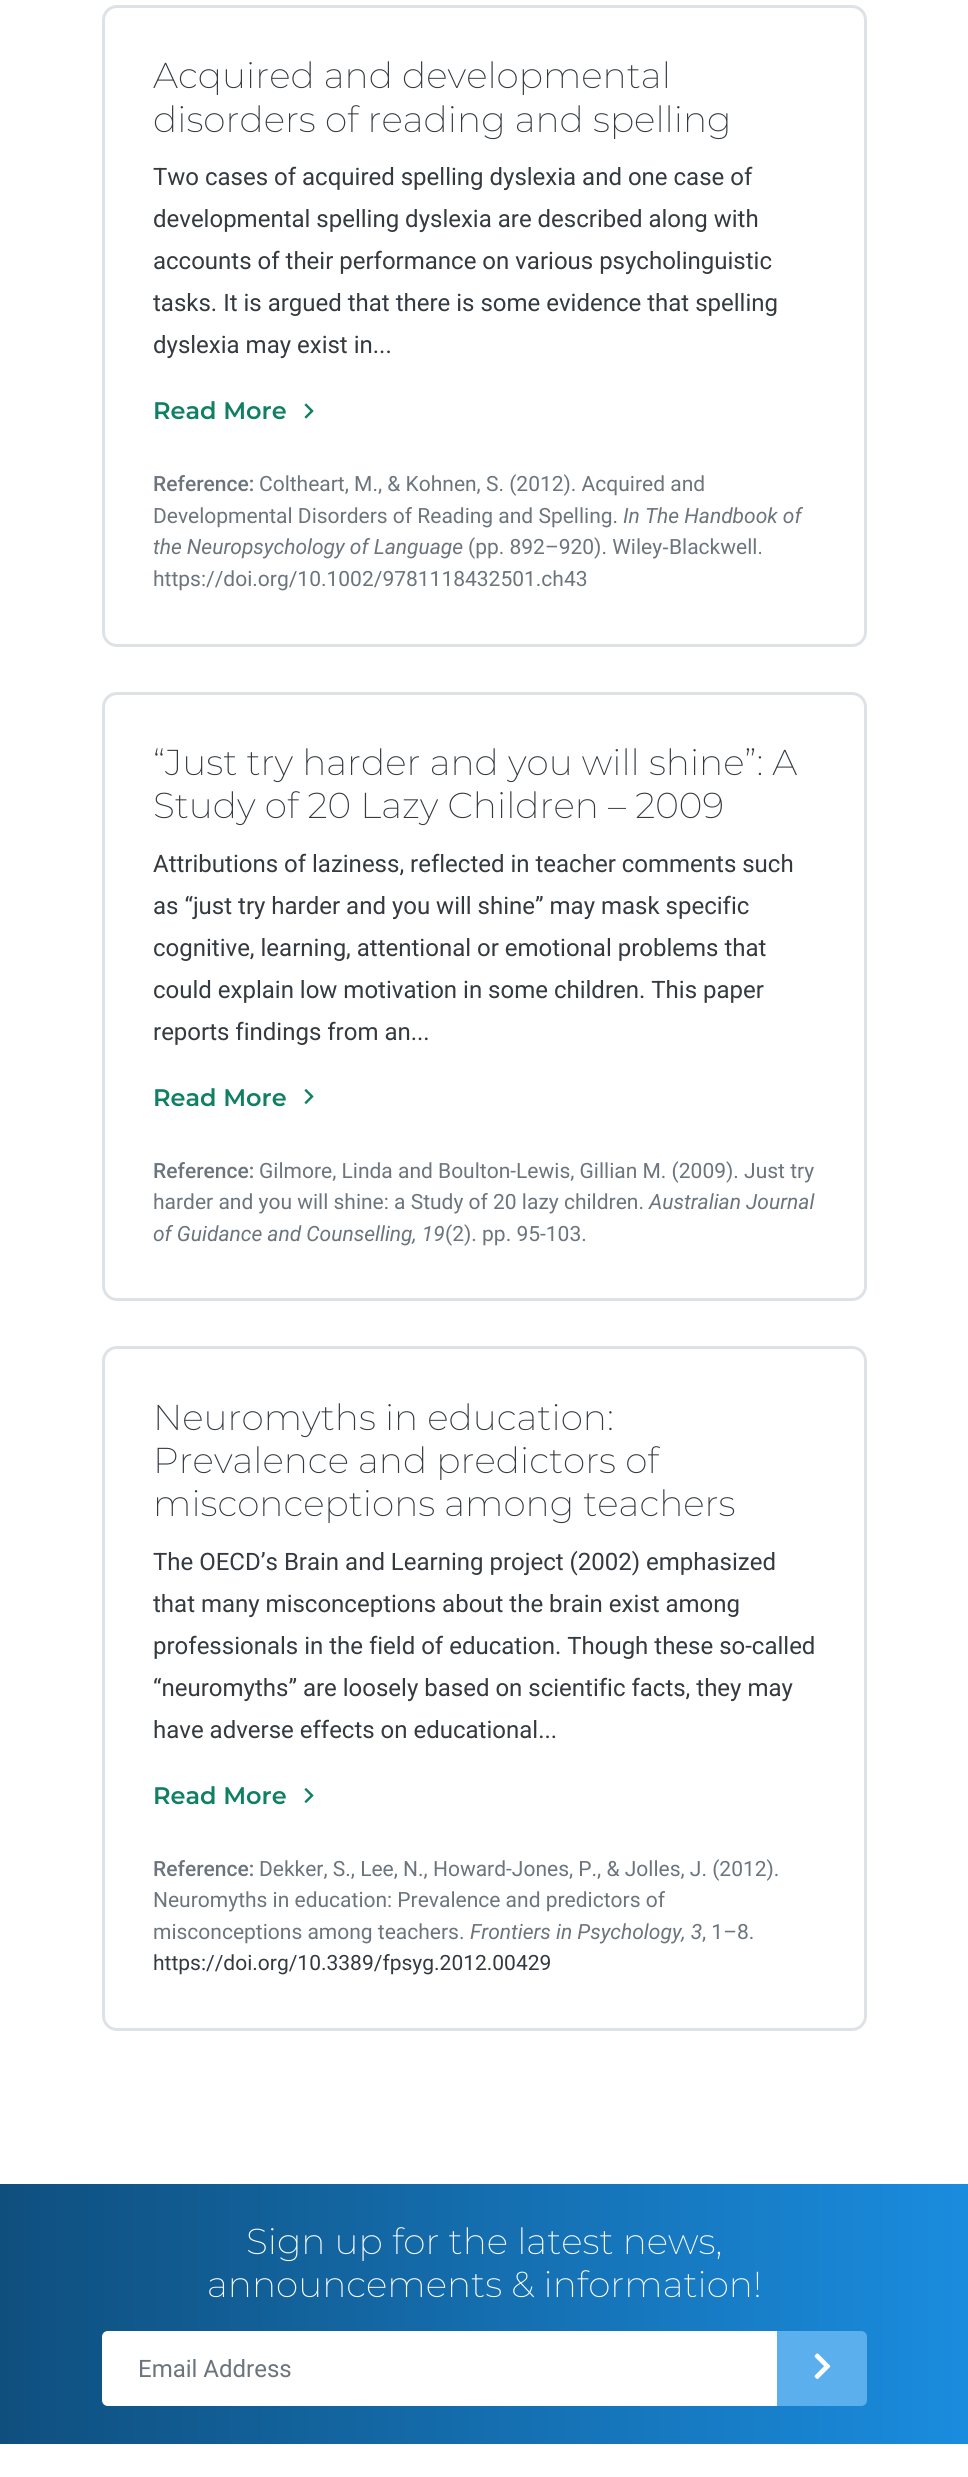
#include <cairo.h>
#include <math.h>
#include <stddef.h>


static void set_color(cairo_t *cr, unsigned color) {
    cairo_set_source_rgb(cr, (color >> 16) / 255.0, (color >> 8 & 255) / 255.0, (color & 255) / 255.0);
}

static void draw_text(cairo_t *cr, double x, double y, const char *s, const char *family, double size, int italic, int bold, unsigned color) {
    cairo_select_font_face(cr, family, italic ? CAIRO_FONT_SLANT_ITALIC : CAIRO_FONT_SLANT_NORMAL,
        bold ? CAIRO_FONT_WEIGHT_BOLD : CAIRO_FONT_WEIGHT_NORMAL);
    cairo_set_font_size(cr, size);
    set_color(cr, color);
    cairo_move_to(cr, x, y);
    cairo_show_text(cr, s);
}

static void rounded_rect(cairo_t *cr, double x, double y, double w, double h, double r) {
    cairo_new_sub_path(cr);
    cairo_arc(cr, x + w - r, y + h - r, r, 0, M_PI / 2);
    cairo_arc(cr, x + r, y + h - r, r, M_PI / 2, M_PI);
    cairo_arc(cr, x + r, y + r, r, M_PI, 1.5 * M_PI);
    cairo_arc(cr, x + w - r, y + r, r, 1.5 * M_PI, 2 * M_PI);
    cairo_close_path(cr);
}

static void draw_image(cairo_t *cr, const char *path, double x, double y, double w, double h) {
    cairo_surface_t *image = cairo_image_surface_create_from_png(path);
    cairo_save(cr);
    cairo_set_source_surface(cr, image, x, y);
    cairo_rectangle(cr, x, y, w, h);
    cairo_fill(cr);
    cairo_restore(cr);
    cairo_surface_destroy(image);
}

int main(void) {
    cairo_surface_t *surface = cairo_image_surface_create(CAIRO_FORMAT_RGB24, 968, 2477);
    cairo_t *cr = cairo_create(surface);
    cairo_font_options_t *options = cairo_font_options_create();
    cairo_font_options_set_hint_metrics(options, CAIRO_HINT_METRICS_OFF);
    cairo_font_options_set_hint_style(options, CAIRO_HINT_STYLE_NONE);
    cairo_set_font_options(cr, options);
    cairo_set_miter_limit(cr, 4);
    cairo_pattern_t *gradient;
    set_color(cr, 0xFFFFFF);
    cairo_paint(cr);
    rounded_rect(cr, 103.5, 6.5, 762, 639, 13.5);
    set_color(cr, 0xDEE2E6);
    cairo_set_line_width(cr, 3);
    cairo_stroke(cr);
    draw_text(cr, 153, 88, "Acquired and developmental", "Montserrat ExtraLight", 36, 0, 0, 0x343A40);
    draw_text(cr, 153, 132, "disorders of reading and spelling", "Montserrat ExtraLight", 36, 0, 0, 0x343A40);
    draw_text(cr, 153, 185, "Two cases of acquired spelling dyslexia and one case of", "Roboto", 24, 0, 0, 0x343A40);
    draw_text(cr, 153, 227, "developmental spelling dyslexia are described along with", "Roboto", 24, 0, 0, 0x343A40);
    draw_text(cr, 153, 269, "accounts of their performance on various psycholinguistic", "Roboto", 24, 0, 0, 0x343A40);
    draw_text(cr, 153, 311, "tasks. It is argued that there is some evidence that spelling", "Roboto", 24, 0, 0, 0x343A40);
    draw_text(cr, 153, 353, "dyslexia may exist in...", "Roboto", 24, 0, 0, 0x343A40);
    draw_text(cr, 153, 419, "Read More", "Montserrat SemiBold", 24, 0, 0, 0x0F8064);
    draw_image(cr, "assets/img1.png", 304, 403, 10, 16);
    draw_text(cr, 153, 491, "Reference:", "Roboto Medium", 21, 0, 0, 0x6C757D);
    draw_text(cr, 259, 491, "Coltheart, M., & Kohnen, S. (2012). Acquired and", "Roboto", 21, 0, 0, 0x6C757D);
    draw_text(cr, 153, 523, "Developmental Disorders of Reading and Spelling.", "Roboto", 21, 0, 0, 0x6C757D);
    draw_text(cr, 623, 523, "In The Handbook of", "Roboto", 21, 1, 0, 0x6C757D);
    draw_text(cr, 153, 554, "the Neuropsychology of Language", "Roboto", 21, 1, 0, 0x6C757D);
    draw_text(cr, 468, 554, "(pp. 892–920). Wiley", "Roboto", 21, 0, 0, 0x6C757D);
    draw_text(cr, 662, 554, "‐", "Liberation Sans", 21, 0, 0, 0x6C757D);
    draw_text(cr, 669, 554, "Blackwell.", "Roboto", 21, 0, 0, 0x6C757D);
    draw_text(cr, 153, 586, "https://doi.org/10.1002/9781118432501.ch43", "Roboto", 21, 0, 0, 0x6C757D);
    rounded_rect(cr, 103.5, 693.5, 762, 606, 13.5);
    set_color(cr, 0xDEE2E6);
    cairo_stroke(cr);
    draw_text(cr, 153, 775, "“Just try harder and you will shine”: A", "Montserrat ExtraLight", 36, 0, 0, 0x343A40);
    draw_text(cr, 153, 818, "Study of 20 Lazy Children – 2009", "Montserrat ExtraLight", 36, 0, 0, 0x343A40);
    draw_text(cr, 153, 872, "Attributions of laziness, reflected in teacher comments such", "Roboto", 24, 0, 0, 0x343A40);
    draw_text(cr, 153, 914, "as “just try harder and you will shine” may mask specific", "Roboto", 24, 0, 0, 0x343A40);
    draw_text(cr, 153, 956, "cognitive, learning, attentional or emotional problems that", "Roboto", 24, 0, 0, 0x343A40);
    draw_text(cr, 153, 998, "could explain low motivation in some children. This paper", "Roboto", 24, 0, 0, 0x343A40);
    draw_text(cr, 153, 1040, "reports findings from an...", "Roboto", 24, 0, 0, 0x343A40);
    draw_text(cr, 153, 1106, "Read More", "Montserrat SemiBold", 24, 0, 0, 0x0F8064);
    draw_image(cr, "assets/img2.png", 304, 1089, 10, 15);
    draw_text(cr, 153, 1178, "Reference:", "Roboto Medium", 21, 0, 0, 0x6C757D);
    draw_text(cr, 259, 1178, "Gilmore, Linda and Boulton-Lewis, Gillian M. (2009). Just try", "Roboto", 21, 0, 0, 0x6C757D);
    draw_text(cr, 153, 1209, "harder and you will shine: a Study of 20 lazy children.", "Roboto", 21, 0, 0, 0x6C757D);
    draw_text(cr, 649, 1209, "Australian Journal", "Roboto", 21, 1, 0, 0x6C757D);
    draw_text(cr, 153, 1241, "of Guidance and Counselling, 19", "Roboto", 21, 1, 0, 0x6C757D);
    draw_text(cr, 445, 1241, "(2). pp. 95-103.", "Roboto", 21, 0, 0, 0x6C757D);
    rounded_rect(cr, 103.5, 1347.5, 762, 682, 13.5);
    set_color(cr, 0xDEE2E6);
    cairo_stroke(cr);
    draw_text(cr, 153, 1430, "Neuromyths in education:", "Montserrat ExtraLight", 36, 0, 0, 0x343A40);
    draw_text(cr, 153, 1473, "Prevalence and predictors of", "Montserrat ExtraLight", 36, 0, 0, 0x343A40);
    draw_text(cr, 153, 1516, "misconceptions among teachers", "Montserrat ExtraLight", 36, 0, 0, 0x343A40);
    draw_text(cr, 153, 1570, "The OECD’s Brain and Learning project (2002) emphasized", "Roboto", 24, 0, 0, 0x343A40);
    draw_text(cr, 153, 1612, "that many misconceptions about the brain exist among", "Roboto", 24, 0, 0, 0x343A40);
    draw_text(cr, 153, 1654, "professionals in the field of education. Though these so-called", "Roboto", 24, 0, 0, 0x343A40);
    draw_text(cr, 153, 1696, "“neuromyths” are loosely based on scientific facts, they may", "Roboto", 24, 0, 0, 0x343A40);
    draw_text(cr, 153, 1738, "have adverse effects on educational...", "Roboto", 24, 0, 0, 0x343A40);
    draw_text(cr, 153, 1804, "Read More", "Montserrat SemiBold", 24, 0, 0, 0x0F8064);
    draw_image(cr, "assets/img2.png", 304, 1788, 10, 15);
    draw_text(cr, 153, 1876, "Reference:", "Roboto Medium", 21, 0, 0, 0x6C757D);
    draw_text(cr, 259, 1876, "Dekker, S., Lee, N., Howard-Jones, P., & Jolles, J. (2012).", "Roboto", 21, 0, 0, 0x6C757D);
    draw_text(cr, 153, 1907, "Neuromyths in education: Prevalence and predictors of", "Roboto", 21, 0, 0, 0x6C757D);
    draw_text(cr, 153, 1939, "misconceptions among teachers.", "Roboto", 21, 0, 0, 0x6C757D);
    draw_text(cr, 470, 1939, "Frontiers in Psychology, 3", "Roboto", 21, 1, 0, 0x6C757D);
    draw_text(cr, 702, 1939, ", 1–8.", "Roboto", 21, 0, 0, 0x6C757D);
    draw_text(cr, 153, 1970, "https://doi.org/10.3389/fpsyg.2012.00429", "Roboto", 21, 0, 0, 0x343A40);
    gradient = cairo_pattern_create_linear(0, 2314, 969, 2314);
    cairo_pattern_add_color_stop_rgba(gradient, 0, 0.059, 0.31, 0.494, 1);
    cairo_pattern_add_color_stop_rgba(gradient, 1, 0.102, 0.549, 0.871, 1);
    cairo_set_source(cr, gradient);
    cairo_pattern_destroy(gradient);
    cairo_rectangle(cr, 0, 2184, 968, 260);
    cairo_fill(cr);
    draw_text(cr, 246, 2254, "Sign up for the latest news,", "Montserrat ExtraLight", 36, 0, 0, 0xFFFFFF);
    draw_text(cr, 207, 2297, "announcements & information!", "Montserrat ExtraLight", 36, 0, 0, 0xFFFFFF);
    cairo_new_path(cr);
    cairo_move_to(cr, 108, 2331);
    cairo_line_to(cr, 777, 2331);
    cairo_line_to(cr, 777, 2406);
    cairo_line_to(cr, 108, 2406);
    cairo_curve_to(cr, 104.5, 2406, 102, 2403.5, 102, 2400);
    cairo_line_to(cr, 102, 2337);
    cairo_curve_to(cr, 102, 2333.5, 104.5, 2331, 108, 2331);
    cairo_close_path(cr);
    cairo_fill(cr);
    draw_text(cr, 138, 2377, "Email Address", "Roboto", 24, 0, 0, 0x6C757D);
    set_color(cr, 0x5BAFEC);
    cairo_new_path(cr);
    cairo_move_to(cr, 777, 2331);
    cairo_line_to(cr, 861, 2331);
    cairo_curve_to(cr, 864.5, 2331, 867, 2333.5, 867, 2337);
    cairo_line_to(cr, 867, 2400);
    cairo_curve_to(cr, 867, 2403.5, 864.5, 2406, 861, 2406);
    cairo_line_to(cr, 777, 2406);
    cairo_close_path(cr);
    cairo_fill(cr);
    draw_image(cr, "assets/img3.png", 814, 2353, 17, 26);
    cairo_surface_write_to_png(surface, "output.png");
    cairo_font_options_destroy(options);
    cairo_destroy(cr);
    cairo_surface_destroy(surface);
    return 0;
}
